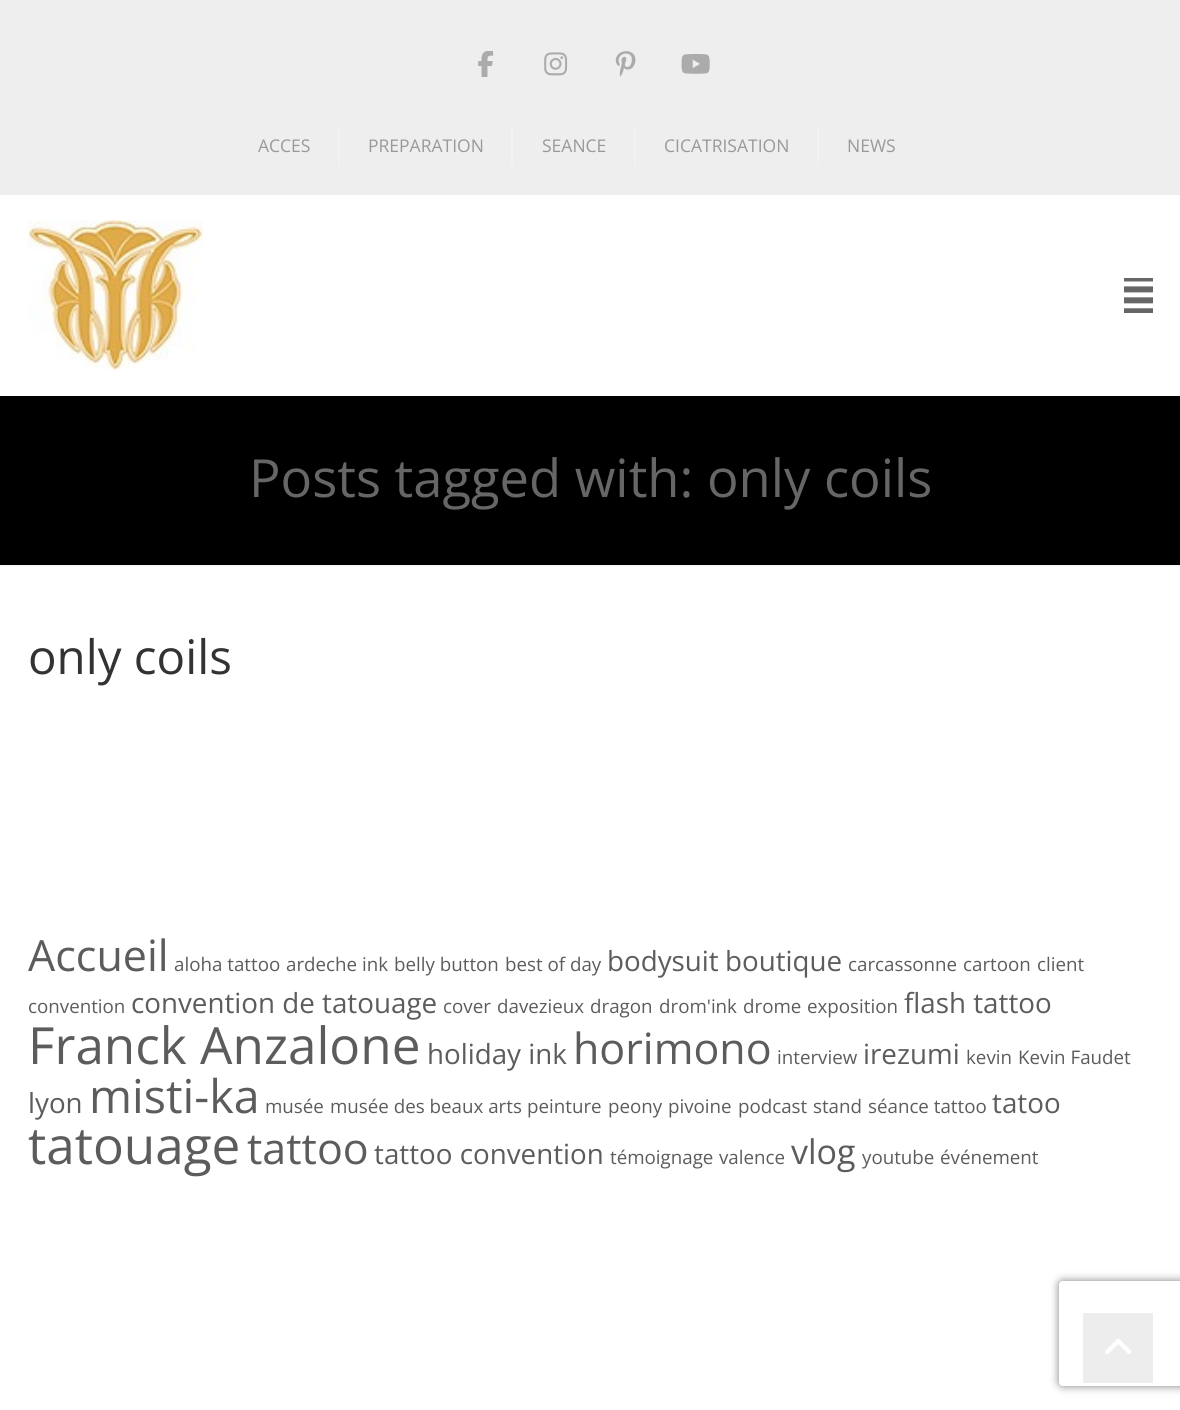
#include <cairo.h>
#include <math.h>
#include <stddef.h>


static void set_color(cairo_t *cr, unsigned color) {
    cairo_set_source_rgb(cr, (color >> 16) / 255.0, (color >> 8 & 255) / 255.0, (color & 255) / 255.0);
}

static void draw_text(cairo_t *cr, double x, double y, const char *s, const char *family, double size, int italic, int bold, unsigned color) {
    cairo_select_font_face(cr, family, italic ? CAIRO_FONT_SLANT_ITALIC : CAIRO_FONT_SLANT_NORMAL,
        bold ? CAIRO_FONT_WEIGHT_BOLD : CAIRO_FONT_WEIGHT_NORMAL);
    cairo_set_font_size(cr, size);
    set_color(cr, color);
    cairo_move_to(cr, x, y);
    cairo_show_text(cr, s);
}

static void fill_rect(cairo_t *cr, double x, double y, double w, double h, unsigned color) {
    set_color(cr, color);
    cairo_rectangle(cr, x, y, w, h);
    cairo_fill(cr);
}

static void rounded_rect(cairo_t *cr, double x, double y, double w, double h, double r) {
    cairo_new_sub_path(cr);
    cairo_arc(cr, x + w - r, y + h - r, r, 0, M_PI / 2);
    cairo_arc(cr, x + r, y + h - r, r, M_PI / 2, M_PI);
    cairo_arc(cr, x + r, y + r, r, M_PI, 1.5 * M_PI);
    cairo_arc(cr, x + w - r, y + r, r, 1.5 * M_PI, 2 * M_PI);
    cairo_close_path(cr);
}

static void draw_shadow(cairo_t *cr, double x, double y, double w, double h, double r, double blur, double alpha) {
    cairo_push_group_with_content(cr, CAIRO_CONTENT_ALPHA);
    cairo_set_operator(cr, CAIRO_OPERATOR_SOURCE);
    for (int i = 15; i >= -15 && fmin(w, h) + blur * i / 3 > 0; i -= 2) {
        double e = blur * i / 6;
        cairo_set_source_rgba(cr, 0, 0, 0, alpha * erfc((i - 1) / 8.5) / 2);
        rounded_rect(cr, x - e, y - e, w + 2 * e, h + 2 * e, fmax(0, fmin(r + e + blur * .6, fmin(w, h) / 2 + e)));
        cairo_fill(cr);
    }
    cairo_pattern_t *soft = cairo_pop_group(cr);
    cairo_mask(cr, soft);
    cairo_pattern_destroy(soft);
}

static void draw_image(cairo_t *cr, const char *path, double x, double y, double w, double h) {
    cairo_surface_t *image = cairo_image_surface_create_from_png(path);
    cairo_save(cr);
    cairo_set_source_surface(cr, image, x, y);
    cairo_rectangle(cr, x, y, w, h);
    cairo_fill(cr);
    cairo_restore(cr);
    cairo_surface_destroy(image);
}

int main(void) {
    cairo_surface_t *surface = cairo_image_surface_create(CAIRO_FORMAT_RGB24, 1180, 1410);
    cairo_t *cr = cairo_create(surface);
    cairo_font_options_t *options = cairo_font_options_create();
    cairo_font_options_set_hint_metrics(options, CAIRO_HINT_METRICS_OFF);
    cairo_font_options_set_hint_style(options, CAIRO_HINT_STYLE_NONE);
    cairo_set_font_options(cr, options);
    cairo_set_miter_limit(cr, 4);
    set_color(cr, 0xFFFFFF);
    cairo_paint(cr);
    fill_rect(cr, 0, 0, 1180, 195, 0xEEEEEE);
    draw_image(cr, "assets/img1.png", 478, 51, 16, 26);
    draw_image(cr, "assets/img2.png", 544, 52, 24, 24);
    draw_image(cr, "assets/img3.png", 615, 51, 21, 26);
    draw_image(cr, "assets/img4.png", 681, 53, 29, 21);
    fill_rect(cr, 338, 126, 2, 39, 0xF2F2F2);
    draw_text(cr, 258, 152, "ACCES", "Open Sans", 17.5, 0, 0, 0x999999);
    fill_rect(cr, 511, 126, 2, 39, 0xF2F2F2);
    draw_text(cr, 368, 152, "PREPARATION", "Open Sans", 17.5, 0, 0, 0x999999);
    fill_rect(cr, 634, 126, 2, 39, 0xF2F2F2);
    draw_text(cr, 542, 152, "SEANCE", "Open Sans", 17.5, 0, 0, 0x999999);
    fill_rect(cr, 817, 126, 2, 39, 0xF2F2F2);
    draw_text(cr, 664, 152, "CICATRISATION", "Open Sans", 17.5, 0, 0, 0x999999);
    draw_text(cr, 847, 152, "NEWS", "Open Sans", 17.5, 0, 0, 0x999999);
    draw_image(cr, "assets/img5.png", 28, 220, 175, 150);
    fill_rect(cr, 1124, 278, 29, 35, 0x666666);
    draw_image(cr, "assets/img6.png", 1124, 281, 29, 28);
    fill_rect(cr, 0, 565, 1180, 2, 0xF8F8F8);
    fill_rect(cr, 0, 396, 1180, 169, 0x000000);
    draw_text(cr, 249, 497, "Posts tagged with: only coils", "Open Sans", 52.5, 0, 0, 0x666666);
    draw_text(cr, 28, 674, "only coils", "Open Sans", 47.5, 0, 0, 0x333333);
    draw_text(cr, 28, 971, "Accueil", "Open Sans", 43, 0, 0, 0x5C5C5C);
    draw_text(cr, 174, 971, "aloha tattoo", "Open Sans", 18.75, 0, 0, 0x5C5C5C);
    draw_text(cr, 286, 971, "ardeche ink", "Open Sans", 18.75, 0, 0, 0x5C5C5C);
    draw_text(cr, 394, 971, "belly button", "Open Sans", 18.75, 0, 0, 0x5C5C5C);
    draw_text(cr, 505, 971, "best of day", "Open Sans", 18.75, 0, 0, 0x5C5C5C);
    draw_text(cr, 607, 971, "bodysuit", "Open Sans", 27.75, 0, 0, 0x5C5C5C);
    draw_text(cr, 725, 971, "boutique", "Open Sans", 27.75, 0, 0, 0x5C5C5C);
    draw_text(cr, 848, 971, "carcassonne", "Open Sans", 18.75, 0, 0, 0x5C5C5C);
    draw_text(cr, 963, 971, "cartoon", "Open Sans", 18.75, 0, 0, 0x5C5C5C);
    draw_text(cr, 1037, 971, "client", "Open Sans", 18.75, 0, 0, 0x5C5C5C);
    draw_text(cr, 28, 1013, "convention", "Open Sans", 18.75, 0, 0, 0x5C5C5C);
    draw_text(cr, 131, 1013, "convention de tatouage", "Open Sans", 27.75, 0, 0, 0x5C5C5C);
    draw_text(cr, 443, 1013, "cover", "Open Sans", 18.75, 0, 0, 0x5C5C5C);
    draw_text(cr, 497, 1013, "davezieux", "Open Sans", 18.75, 0, 0, 0x5C5C5C);
    draw_text(cr, 590, 1013, "dragon", "Open Sans", 18.75, 0, 0, 0x5C5C5C);
    draw_text(cr, 659, 1013, "drom'ink", "Open Sans", 18.75, 0, 0, 0x5C5C5C);
    draw_text(cr, 743, 1013, "drome", "Open Sans", 18.75, 0, 0, 0x5C5C5C);
    draw_text(cr, 807, 1013, "exposition", "Open Sans", 18.75, 0, 0, 0x5C5C5C);
    draw_text(cr, 904, 1013, "flash tattoo", "Open Sans", 27.75, 0, 0, 0x5C5C5C);
    draw_text(cr, 28, 1064, "Franck Anzalone", "Open Sans", 51.25, 0, 0, 0x5C5C5C);
    draw_text(cr, 427, 1064, "holiday ink", "Open Sans", 27.75, 0, 0, 0x5C5C5C);
    draw_text(cr, 573, 1064, "horimono", "Open Sans", 43, 0, 0, 0x5C5C5C);
    draw_text(cr, 777, 1064, "interview", "Open Sans", 18.75, 0, 0, 0x5C5C5C);
    draw_text(cr, 863, 1064, "irezumi", "Open Sans", 27.75, 0, 0, 0x5C5C5C);
    draw_text(cr, 966, 1064, "kevin", "Open Sans", 18.75, 0, 0, 0x5C5C5C);
    draw_text(cr, 1018, 1064, "Kevin Faudet", "Open Sans", 18.75, 0, 0, 0x5C5C5C);
    draw_text(cr, 28, 1113, "lyon", "Open Sans", 27.75, 0, 0, 0x5C5C5C);
    draw_text(cr, 89, 1113, "misti-ka", "Open Sans", 46.5, 0, 0, 0x5C5C5C);
    draw_text(cr, 265, 1113, "musée", "Open Sans", 18.75, 0, 0, 0x5C5C5C);
    draw_text(cr, 330, 1113, "musée des beaux arts", "Open Sans", 18.75, 0, 0, 0x5C5C5C);
    draw_text(cr, 527, 1113, "peinture", "Open Sans", 18.75, 0, 0, 0x5C5C5C);
    draw_text(cr, 608, 1113, "peony", "Open Sans", 18.75, 0, 0, 0x5C5C5C);
    draw_text(cr, 668, 1113, "pivoine", "Open Sans", 18.75, 0, 0, 0x5C5C5C);
    draw_text(cr, 738, 1113, "podcast", "Open Sans", 18.75, 0, 0, 0x5C5C5C);
    draw_text(cr, 813, 1113, "stand", "Open Sans", 18.75, 0, 0, 0x5C5C5C);
    draw_text(cr, 868, 1113, "séance tattoo", "Open Sans", 18.75, 0, 0, 0x5C5C5C);
    draw_text(cr, 992, 1113, "tatoo", "Open Sans", 27.75, 0, 0, 0x5C5C5C);
    draw_text(cr, 28, 1164, "tatouage", "Open Sans", 51.25, 0, 0, 0x5C5C5C);
    draw_text(cr, 247, 1164, "tattoo", "Open Sans", 43, 0, 0, 0x5C5C5C);
    draw_text(cr, 374, 1164, "tattoo convention", "Open Sans", 27.75, 0, 0, 0x5C5C5C);
    draw_text(cr, 610, 1164, "témoignage", "Open Sans", 18.75, 0, 0, 0x5C5C5C);
    draw_text(cr, 719, 1164, "valence", "Open Sans", 18.75, 0, 0, 0x5C5C5C);
    draw_text(cr, 791, 1164, "vlog", "Open Sans", 34, 0, 0, 0x5C5C5C);
    draw_text(cr, 862, 1164, "youtube", "Open Sans", 18.75, 0, 0, 0x5C5C5C);
    draw_text(cr, 940, 1164, "événement", "Open Sans", 18.75, 0, 0, 0x5C5C5C);
    cairo_save(cr);
    cairo_set_fill_rule(cr, CAIRO_FILL_RULE_EVEN_ODD);
    cairo_new_path(cr);
    cairo_move_to(cr, 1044, 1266);
    cairo_line_to(cr, 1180, 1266);
    cairo_line_to(cr, 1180, 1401);
    cairo_line_to(cr, 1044, 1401);
    cairo_close_path(cr);
    cairo_move_to(cr, 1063, 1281);
    cairo_line_to(cr, 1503, 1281);
    cairo_curve_to(cr, 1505, 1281, 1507, 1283, 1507, 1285);
    cairo_line_to(cr, 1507, 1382);
    cairo_curve_to(cr, 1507, 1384, 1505, 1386, 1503, 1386);
    cairo_line_to(cr, 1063, 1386);
    cairo_curve_to(cr, 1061, 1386, 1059, 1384, 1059, 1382);
    cairo_line_to(cr, 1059, 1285);
    cairo_curve_to(cr, 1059, 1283, 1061, 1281, 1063, 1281);
    cairo_close_path(cr);
    cairo_clip(cr);
    set_color(cr, 0x808080);
    draw_shadow(cr, 1059, 1281, 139, 105, 4, 4.5, 1);
    cairo_restore(cr);
    fill_rect(cr, 1083, 1313, 70, 70, 0xEDEDED);
    draw_image(cr, "assets/img7.png", 1105, 1339, 27, 15);
    cairo_surface_write_to_png(surface, "output.png");
    cairo_font_options_destroy(options);
    cairo_destroy(cr);
    cairo_surface_destroy(surface);
    return 0;
}
